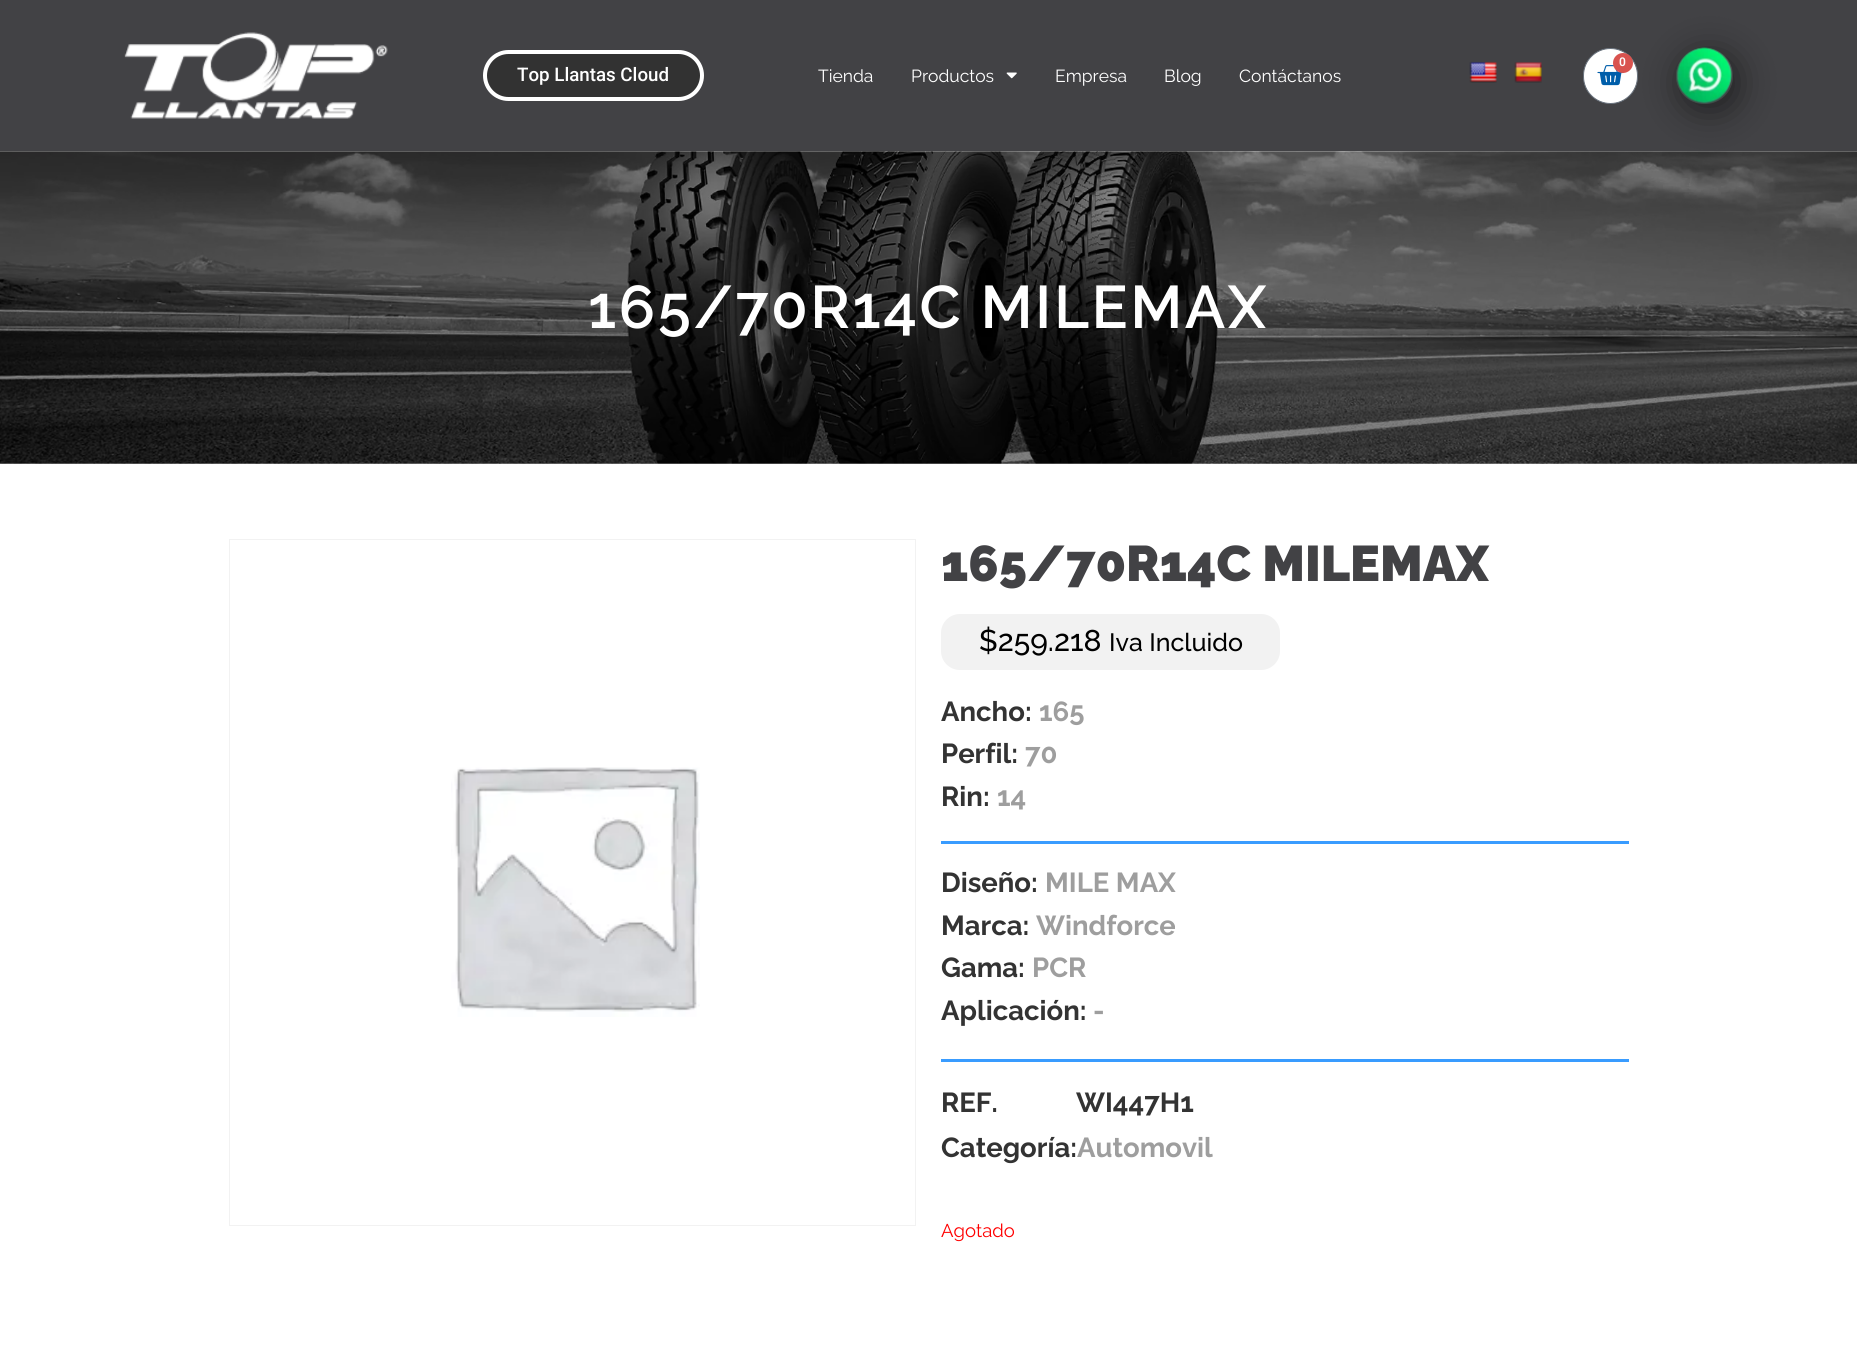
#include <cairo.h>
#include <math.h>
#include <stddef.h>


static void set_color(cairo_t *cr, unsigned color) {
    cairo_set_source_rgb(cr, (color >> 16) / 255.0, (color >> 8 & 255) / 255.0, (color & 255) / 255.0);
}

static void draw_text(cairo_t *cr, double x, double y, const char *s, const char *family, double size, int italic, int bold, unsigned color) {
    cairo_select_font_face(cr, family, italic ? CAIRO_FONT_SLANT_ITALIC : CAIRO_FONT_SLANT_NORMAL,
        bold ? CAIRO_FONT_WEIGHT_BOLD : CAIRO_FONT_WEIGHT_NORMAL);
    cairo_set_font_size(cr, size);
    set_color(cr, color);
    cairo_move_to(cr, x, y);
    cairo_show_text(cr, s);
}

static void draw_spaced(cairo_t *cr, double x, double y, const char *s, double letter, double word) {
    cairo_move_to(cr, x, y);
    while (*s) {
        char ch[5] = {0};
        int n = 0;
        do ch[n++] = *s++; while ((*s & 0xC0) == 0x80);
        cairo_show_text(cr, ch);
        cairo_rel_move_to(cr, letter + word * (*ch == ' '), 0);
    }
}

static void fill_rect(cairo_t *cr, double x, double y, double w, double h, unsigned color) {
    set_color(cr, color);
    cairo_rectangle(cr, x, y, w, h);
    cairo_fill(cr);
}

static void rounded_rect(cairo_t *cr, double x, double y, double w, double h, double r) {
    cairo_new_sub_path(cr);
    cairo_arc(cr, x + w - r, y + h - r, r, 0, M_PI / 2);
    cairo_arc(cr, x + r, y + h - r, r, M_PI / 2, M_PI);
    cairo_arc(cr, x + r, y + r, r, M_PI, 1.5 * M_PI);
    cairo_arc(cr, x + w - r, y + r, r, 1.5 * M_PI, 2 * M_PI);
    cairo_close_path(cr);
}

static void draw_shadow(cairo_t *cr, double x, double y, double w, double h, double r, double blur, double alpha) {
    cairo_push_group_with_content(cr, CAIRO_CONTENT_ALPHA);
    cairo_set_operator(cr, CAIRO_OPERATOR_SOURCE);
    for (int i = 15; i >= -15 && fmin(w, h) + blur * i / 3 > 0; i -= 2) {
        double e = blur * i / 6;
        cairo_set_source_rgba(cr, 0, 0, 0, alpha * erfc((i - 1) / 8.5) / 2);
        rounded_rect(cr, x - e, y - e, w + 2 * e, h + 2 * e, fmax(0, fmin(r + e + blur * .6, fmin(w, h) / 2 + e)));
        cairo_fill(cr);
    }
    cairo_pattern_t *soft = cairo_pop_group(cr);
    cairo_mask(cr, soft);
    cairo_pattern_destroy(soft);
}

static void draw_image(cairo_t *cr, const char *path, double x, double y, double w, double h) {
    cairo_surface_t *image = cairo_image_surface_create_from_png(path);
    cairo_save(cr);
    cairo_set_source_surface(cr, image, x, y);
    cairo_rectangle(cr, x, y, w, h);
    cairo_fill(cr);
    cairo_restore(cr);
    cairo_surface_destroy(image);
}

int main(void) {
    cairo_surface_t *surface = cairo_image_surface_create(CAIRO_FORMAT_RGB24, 1857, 1355);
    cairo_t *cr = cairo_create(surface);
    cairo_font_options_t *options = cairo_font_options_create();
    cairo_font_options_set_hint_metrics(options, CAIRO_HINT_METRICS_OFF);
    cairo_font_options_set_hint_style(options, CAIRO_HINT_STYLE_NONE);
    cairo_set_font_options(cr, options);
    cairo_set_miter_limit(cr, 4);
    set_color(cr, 0xFFFFFF);
    cairo_paint(cr);
    fill_rect(cr, 0, 0, 1857, 151, 0x424245);
    draw_image(cr, "assets/img1.png", 124, 32, 264, 87);
    set_color(cr, 0x323232);
    rounded_rect(cr, 485, 52, 217, 47, 23.5);
    cairo_fill_preserve(cr);
    set_color(cr, 0xFFFFFF);
    cairo_set_line_width(cr, 4);
    cairo_stroke(cr);
    draw_text(cr, 517, 81, "Top Llantas Cloud", "Roboto Medium", 18.75, 0, 0, 0xFFFFFF);
    draw_text(cr, 818, 82, "Tienda", "Raleway", 17.5, 0, 0, 0xFFFFFF);
    draw_text(cr, 911, 82, "Productos", "Raleway", 17.5, 0, 0, 0xFFFFFF);
    draw_image(cr, "assets/img2.png", 1006, 72, 11, 7);
    draw_text(cr, 1055, 82, "Empresa", "Raleway", 17.5, 0, 0, 0xFFFFFF);
    draw_text(cr, 1164, 82, "Blog", "Raleway", 17.5, 0, 0, 0xFFFFFF);
    draw_text(cr, 1239, 82, "Contáctanos", "Raleway", 17.5, 0, 0, 0xFFFFFF);
    draw_image(cr, "assets/img3.png", 1469, 61, 28, 22);
    draw_image(cr, "assets/img4.png", 1514, 62, 28, 21);
    rounded_rect(cr, 1583.5, 48.5, 54, 55, 27);
    cairo_fill_preserve(cr);
    set_color(cr, 0x69727D);
    cairo_set_line_width(cr, 1);
    cairo_stroke(cr);
    draw_image(cr, "assets/img5.png", 1597, 65, 27, 21);
    set_color(cr, 0xD9534F);
    cairo_arc(cr, 1623, 63, 10, 0, 2 * M_PI);
    cairo_fill(cr);
    draw_text(cr, 1619, 66, "0", "Roboto SemiBold", 12, 0, 0, 0xFFFFFF);
    draw_image(cr, "assets/img7.png", 0, 151, 1857, 313);
    cairo_save(cr);
    cairo_set_fill_rule(cr, CAIRO_FILL_RULE_EVEN_ODD);
    cairo_new_path(cr);
    cairo_move_to(cr, 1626, 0);
    cairo_line_to(cr, 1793, 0);
    cairo_line_to(cr, 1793, 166);
    cairo_line_to(cr, 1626, 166);
    cairo_close_path(cr);
    cairo_move_to(cr, 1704, 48);
    cairo_line_to(cr, 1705, 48);
    cairo_curve_to(cr, 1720.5, 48, 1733, 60.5, 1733, 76);
    cairo_curve_to(cr, 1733, 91.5, 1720.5, 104, 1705, 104);
    cairo_line_to(cr, 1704, 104);
    cairo_curve_to(cr, 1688.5, 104, 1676, 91.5, 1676, 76);
    cairo_curve_to(cr, 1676, 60.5, 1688.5, 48, 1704, 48);
    cairo_close_path(cr);
    cairo_clip(cr);
    set_color(cr, 0x000000);
    draw_shadow(cr, 1681, 55, 57, 56, 28, 18, 0.5);
    cairo_restore(cr);
    draw_image(cr, "assets/img6.png", 1676, 47, 56, 57);
    cairo_select_font_face(cr, "Raleway SemiBold", CAIRO_FONT_SLANT_NORMAL, CAIRO_FONT_WEIGHT_NORMAL);
    cairo_set_font_size(cr, 60);
    draw_spaced(cr, 588, 328, "165/70R14C MILEMAX", 2.5, 0);
    cairo_rectangle(cr, 229.5, 539.5, 686, 686);
    set_color(cr, 0xF2F2F2);
    cairo_stroke(cr);
    draw_image(cr, "assets/img8.png", 451, 767, 249, 250);
    draw_text(cr, 941, 581, "165/70R14C MILEMAX", "Raleway Black", 50, 0, 0, 0x424245);
    set_color(cr, 0xF2F2F2);
    rounded_rect(cr, 941, 614, 339, 56, 19);
    cairo_fill(cr);
    draw_text(cr, 979, 651, "$259.218", "Raleway Medium", 30, 0, 0, 0x000000);
    draw_text(cr, 1109, 651, "Iva Incluido", "Raleway Medium", 25, 0, 0, 0x000000);
    draw_text(cr, 941, 721, "Ancho:", "Raleway", 27.5, 0, 1, 0x333333);
    draw_text(cr, 1039, 721, "165", "Raleway", 27.5, 0, 1, 0x9E9E9E);
    draw_text(cr, 941, 763, "Perfil:", "Raleway", 27.5, 0, 1, 0x333333);
    draw_text(cr, 1025, 763, "70", "Raleway", 27.5, 0, 1, 0x9E9E9E);
    draw_text(cr, 941, 806, "Rin:", "Raleway", 27.5, 0, 1, 0x333333);
    draw_text(cr, 997, 806, "14", "Raleway", 27.5, 0, 1, 0x9E9E9E);
    fill_rect(cr, 941, 841, 688, 3, 0x399CFF);
    fill_rect(cr, 941, 1059, 688, 3, 0x399CFF);
    draw_text(cr, 941, 892, "Diseño:", "Raleway", 27.5, 0, 1, 0x333333);
    draw_text(cr, 1045, 892, "MILE MAX", "Raleway", 27.5, 0, 1, 0x9E9E9E);
    draw_text(cr, 941, 935, "Marca:", "Raleway", 27.5, 0, 1, 0x333333);
    draw_text(cr, 1036, 935, "Windforce", "Raleway", 27.5, 0, 1, 0x9E9E9E);
    draw_text(cr, 941, 977, "Gama:", "Raleway", 27.5, 0, 1, 0x333333);
    draw_text(cr, 1032, 977, "PCR", "Raleway", 27.5, 0, 1, 0x9E9E9E);
    draw_text(cr, 941, 1020, "Aplicación:", "Raleway", 27.5, 0, 1, 0x333333);
    draw_text(cr, 1093, 1020, "-", "Raleway", 27.5, 0, 1, 0x9E9E9E);
    draw_text(cr, 941, 1112, "REF.", "Raleway", 27.5, 0, 1, 0x333333);
    draw_text(cr, 1076, 1112, "WI447H1", "Raleway", 27.5, 0, 1, 0x333333);
    draw_text(cr, 941, 1157, "Categoría:", "Raleway", 27.5, 0, 1, 0x333333);
    draw_text(cr, 1077, 1157, "Automovil", "Raleway", 27.5, 0, 1, 0x9E9E9E);
    draw_text(cr, 941, 1237, "Agotado", "Raleway", 18.5, 0, 0, 0xFF0000);
    cairo_surface_write_to_png(surface, "output.png");
    cairo_font_options_destroy(options);
    cairo_destroy(cr);
    cairo_surface_destroy(surface);
    return 0;
}
